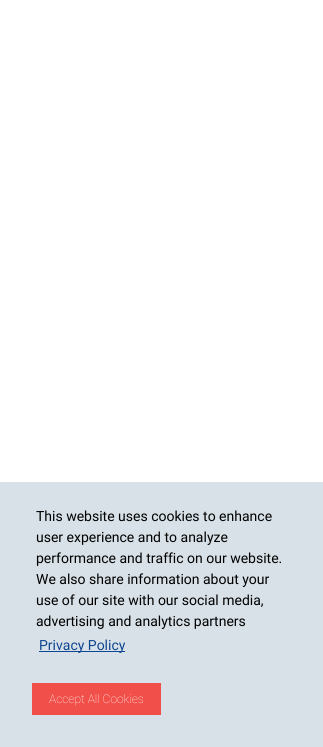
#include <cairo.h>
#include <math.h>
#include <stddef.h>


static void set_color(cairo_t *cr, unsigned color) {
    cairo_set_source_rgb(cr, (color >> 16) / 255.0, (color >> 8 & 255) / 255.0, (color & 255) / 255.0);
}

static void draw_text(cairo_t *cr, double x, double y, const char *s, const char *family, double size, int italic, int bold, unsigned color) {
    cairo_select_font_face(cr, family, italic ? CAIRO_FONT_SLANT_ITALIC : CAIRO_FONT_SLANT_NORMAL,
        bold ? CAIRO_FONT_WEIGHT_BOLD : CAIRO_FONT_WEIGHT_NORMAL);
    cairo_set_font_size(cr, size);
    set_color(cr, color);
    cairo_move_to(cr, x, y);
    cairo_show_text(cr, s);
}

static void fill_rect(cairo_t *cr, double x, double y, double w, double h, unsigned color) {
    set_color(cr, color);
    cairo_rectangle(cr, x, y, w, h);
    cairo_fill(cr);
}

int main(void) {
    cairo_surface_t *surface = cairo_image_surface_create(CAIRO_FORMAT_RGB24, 323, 747);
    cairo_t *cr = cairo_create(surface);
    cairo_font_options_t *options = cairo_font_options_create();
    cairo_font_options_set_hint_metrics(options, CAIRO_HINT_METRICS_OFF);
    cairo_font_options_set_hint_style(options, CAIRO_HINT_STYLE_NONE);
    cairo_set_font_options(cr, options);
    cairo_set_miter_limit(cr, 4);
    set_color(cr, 0xFFFFFF);
    cairo_paint(cr);
    fill_rect(cr, 0, 482, 323, 265, 0xD8E1E7);
    draw_text(cr, 36, 521, "This website uses cookies to enhance", "Roboto", 14, 0, 0, 0x000000);
    draw_text(cr, 36, 542, "user experience and to analyze", "Roboto", 14, 0, 0, 0x000000);
    draw_text(cr, 36, 563, "performance and traffic on our website.", "Roboto", 14, 0, 0, 0x000000);
    draw_text(cr, 36, 584, "We also share information about your", "Roboto", 14, 0, 0, 0x000000);
    draw_text(cr, 36, 605, "use of our site with our social media,", "Roboto", 14, 0, 0, 0x000000);
    draw_text(cr, 36, 626, "advertising and analytics partners", "Roboto", 14, 0, 0, 0x000000);
    fill_rect(cr, 39, 651, 86, 1, 0x0F4692);
    draw_text(cr, 39, 650, "Privacy Policy", "Roboto", 14, 0, 0, 0x0F4692);
    fill_rect(cr, 32, 683, 129, 32, 0xF14F49);
    draw_text(cr, 49, 703, "Accept All Cookies", "Roboto Thin", 12, 0, 0, 0xFFFFFF);
    cairo_surface_write_to_png(surface, "output.png");
    cairo_font_options_destroy(options);
    cairo_destroy(cr);
    cairo_surface_destroy(surface);
    return 0;
}
